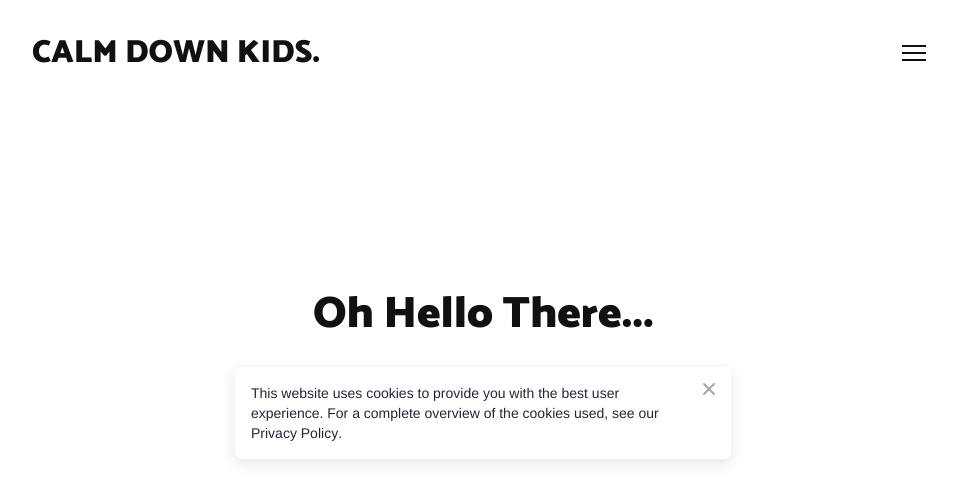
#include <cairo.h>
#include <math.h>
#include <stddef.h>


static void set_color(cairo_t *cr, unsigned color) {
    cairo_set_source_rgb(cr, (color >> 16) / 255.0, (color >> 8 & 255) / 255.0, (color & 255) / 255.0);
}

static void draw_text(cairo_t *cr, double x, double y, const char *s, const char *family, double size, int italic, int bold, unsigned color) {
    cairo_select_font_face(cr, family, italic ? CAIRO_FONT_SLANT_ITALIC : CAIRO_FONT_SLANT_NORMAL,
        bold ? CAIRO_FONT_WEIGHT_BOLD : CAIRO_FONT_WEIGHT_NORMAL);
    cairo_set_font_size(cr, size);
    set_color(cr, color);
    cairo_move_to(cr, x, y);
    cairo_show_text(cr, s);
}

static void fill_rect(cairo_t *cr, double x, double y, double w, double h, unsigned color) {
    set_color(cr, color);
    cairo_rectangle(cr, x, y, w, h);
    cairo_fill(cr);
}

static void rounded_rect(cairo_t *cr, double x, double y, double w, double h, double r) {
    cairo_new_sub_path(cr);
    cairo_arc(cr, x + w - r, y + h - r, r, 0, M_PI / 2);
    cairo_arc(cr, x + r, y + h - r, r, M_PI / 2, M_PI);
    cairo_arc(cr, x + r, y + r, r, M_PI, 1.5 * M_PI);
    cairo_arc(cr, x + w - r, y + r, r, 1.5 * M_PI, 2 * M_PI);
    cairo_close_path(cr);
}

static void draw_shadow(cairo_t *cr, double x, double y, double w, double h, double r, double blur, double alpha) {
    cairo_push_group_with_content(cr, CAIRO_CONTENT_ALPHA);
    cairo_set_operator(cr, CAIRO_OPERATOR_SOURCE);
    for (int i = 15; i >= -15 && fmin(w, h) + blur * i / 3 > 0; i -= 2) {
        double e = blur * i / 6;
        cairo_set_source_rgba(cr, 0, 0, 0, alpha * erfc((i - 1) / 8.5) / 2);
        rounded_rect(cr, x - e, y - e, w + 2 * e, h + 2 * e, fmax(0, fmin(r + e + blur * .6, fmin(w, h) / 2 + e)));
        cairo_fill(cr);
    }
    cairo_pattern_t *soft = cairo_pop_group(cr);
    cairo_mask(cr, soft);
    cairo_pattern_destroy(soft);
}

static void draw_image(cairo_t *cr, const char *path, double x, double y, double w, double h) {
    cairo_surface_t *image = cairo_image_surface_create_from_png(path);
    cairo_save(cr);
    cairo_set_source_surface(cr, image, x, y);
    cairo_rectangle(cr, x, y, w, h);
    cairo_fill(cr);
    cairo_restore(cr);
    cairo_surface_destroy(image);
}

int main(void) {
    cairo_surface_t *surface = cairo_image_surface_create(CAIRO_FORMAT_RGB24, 966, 491);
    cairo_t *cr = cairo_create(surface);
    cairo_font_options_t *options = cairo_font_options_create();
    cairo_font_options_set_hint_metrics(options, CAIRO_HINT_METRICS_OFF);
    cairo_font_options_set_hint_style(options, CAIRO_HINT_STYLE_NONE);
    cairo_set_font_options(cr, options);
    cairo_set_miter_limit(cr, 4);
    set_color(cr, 0xFFFFFF);
    cairo_paint(cr);
    draw_text(cr, 32, 62, "CALM DOWN KIDS.", "Catamaran Black", 32, 0, 0, 0x121111);
    fill_rect(cr, 902, 45, 24, 2, 0x121111);
    fill_rect(cr, 902, 52, 24, 2, 0x121111);
    fill_rect(cr, 902, 59, 24, 2, 0x121111);
    draw_text(cr, 313, 327, "Oh Hello There...", "Catamaran Black", 44, 0, 0, 0x121111);
    set_color(cr, 0x000000);
    draw_shadow(cr, 235, 371, 496, 92, 7, 7, 0.1);
    set_color(cr, 0xFFFFFF);
    rounded_rect(cr, 235, 367, 496, 92, 7);
    cairo_fill(cr);
    draw_text(cr, 251, 398, "This website uses cookies to provide you with the best user", "Liberation Sans", 14, 0, 0, 0x212736);
    draw_text(cr, 251, 418, "experience. For a complete overview of the cookies used, see our", "Liberation Sans", 14, 0, 0, 0x212736);
    draw_text(cr, 251, 438, "Privacy Policy.", "Liberation Sans", 14, 0, 0, 0x212736);
    draw_image(cr, "assets/img1.png", 703, 383, 12, 12);
    cairo_surface_write_to_png(surface, "output.png");
    cairo_font_options_destroy(options);
    cairo_destroy(cr);
    cairo_surface_destroy(surface);
    return 0;
}
